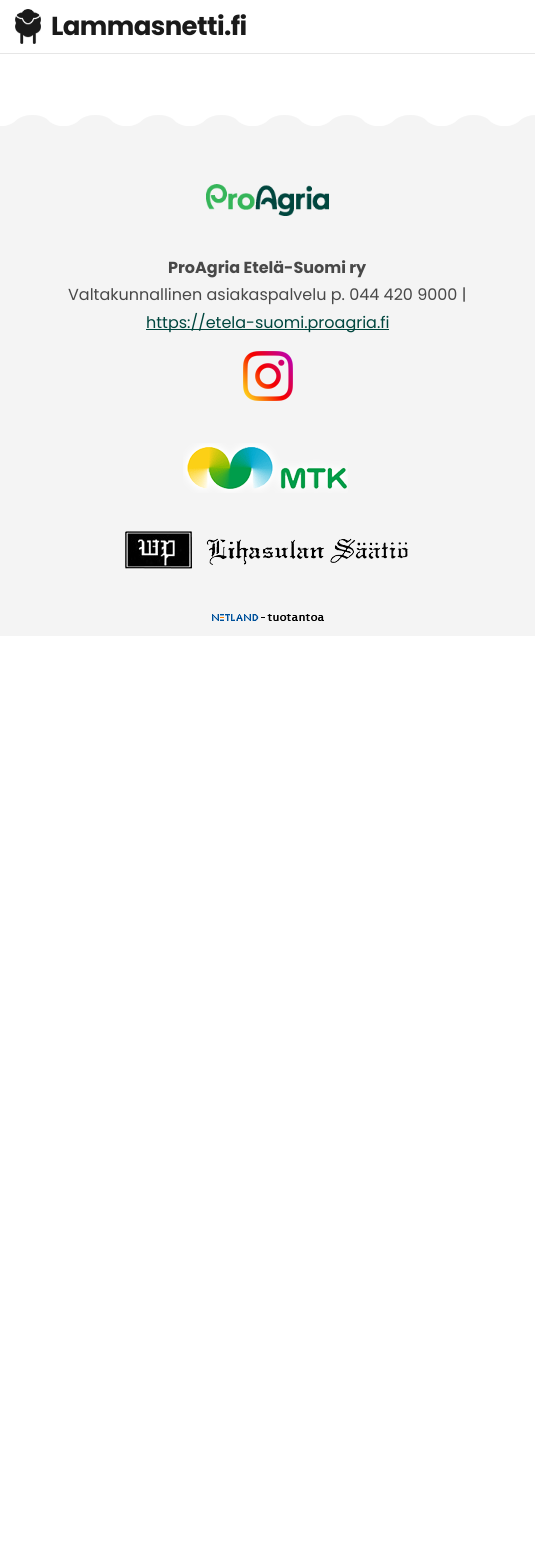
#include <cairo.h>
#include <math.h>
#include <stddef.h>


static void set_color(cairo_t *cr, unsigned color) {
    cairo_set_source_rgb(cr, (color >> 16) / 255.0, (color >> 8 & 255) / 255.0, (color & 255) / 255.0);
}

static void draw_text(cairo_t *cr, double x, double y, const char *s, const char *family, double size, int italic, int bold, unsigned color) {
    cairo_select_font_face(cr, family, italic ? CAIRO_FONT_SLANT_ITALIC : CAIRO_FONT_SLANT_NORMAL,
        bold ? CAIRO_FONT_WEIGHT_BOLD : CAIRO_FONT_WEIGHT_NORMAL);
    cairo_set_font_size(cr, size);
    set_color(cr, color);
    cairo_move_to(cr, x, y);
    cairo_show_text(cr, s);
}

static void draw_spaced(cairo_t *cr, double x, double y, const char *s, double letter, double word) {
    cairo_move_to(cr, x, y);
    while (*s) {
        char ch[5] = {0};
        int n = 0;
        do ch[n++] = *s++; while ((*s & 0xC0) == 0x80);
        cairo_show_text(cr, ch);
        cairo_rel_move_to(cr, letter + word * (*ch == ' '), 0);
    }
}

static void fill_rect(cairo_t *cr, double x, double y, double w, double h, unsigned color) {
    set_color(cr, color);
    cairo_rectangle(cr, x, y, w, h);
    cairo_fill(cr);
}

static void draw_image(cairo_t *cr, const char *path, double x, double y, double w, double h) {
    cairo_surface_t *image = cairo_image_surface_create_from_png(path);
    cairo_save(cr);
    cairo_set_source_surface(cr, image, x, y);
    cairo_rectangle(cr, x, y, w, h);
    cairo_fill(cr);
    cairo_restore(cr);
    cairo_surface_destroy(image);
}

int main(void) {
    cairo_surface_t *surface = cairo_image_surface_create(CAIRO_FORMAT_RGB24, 535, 1542);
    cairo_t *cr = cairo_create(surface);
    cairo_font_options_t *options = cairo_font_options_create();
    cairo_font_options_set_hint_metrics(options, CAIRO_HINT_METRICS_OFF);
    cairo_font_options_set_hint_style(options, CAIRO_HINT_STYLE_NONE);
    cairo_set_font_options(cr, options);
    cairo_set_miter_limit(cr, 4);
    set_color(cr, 0xFFFFFF);
    cairo_paint(cr);
    fill_rect(cr, 0, 53, 535, 1, 0xE6E6E6);
    draw_image(cr, "assets/img1.png", 15, 9, 26, 35);
    cairo_select_font_face(cr, "Poppins", CAIRO_FONT_SLANT_NORMAL, CAIRO_FONT_WEIGHT_BOLD);
    cairo_set_font_size(cr, 26);
    set_color(cr, 0x1A1A1A);
    draw_spaced(cr, 51, 35, "Lammasnetti.fi", -0.6, 0);
    fill_rect(cr, 0, 114, 535, 522, 0xF4F4F4);
    draw_image(cr, "assets/img2.png", 0, 114, 535, 12);
    draw_image(cr, "assets/img3.png", 206, 184, 123, 32);
    draw_text(cr, 168, 273, "ProAgria Etelä-Suomi ry", "Poppins", 16, 0, 1, 0x484848);
    draw_text(cr, 68, 300, "Valtakunnallinen asiakaspalvelu p. 044 420 9000 |", "Poppins", 16, 0, 0, 0x484848);
    fill_rect(cr, 146, 329, 243, 1, 0x00463E);
    draw_text(cr, 146, 328, "https://etela-suomi.proagria.fi", "Poppins", 16, 0, 0, 0x00463E);
    draw_image(cr, "assets/img4.png", 243, 351, 50, 50);
    draw_image(cr, "assets/img5.png", 183, 443, 165, 50);
    draw_image(cr, "assets/img6.png", 125, 531, 284, 38);
    draw_image(cr, "assets/img7.png", 212, 614, 112, 7);
    cairo_surface_write_to_png(surface, "output.png");
    cairo_font_options_destroy(options);
    cairo_destroy(cr);
    cairo_surface_destroy(surface);
    return 0;
}
